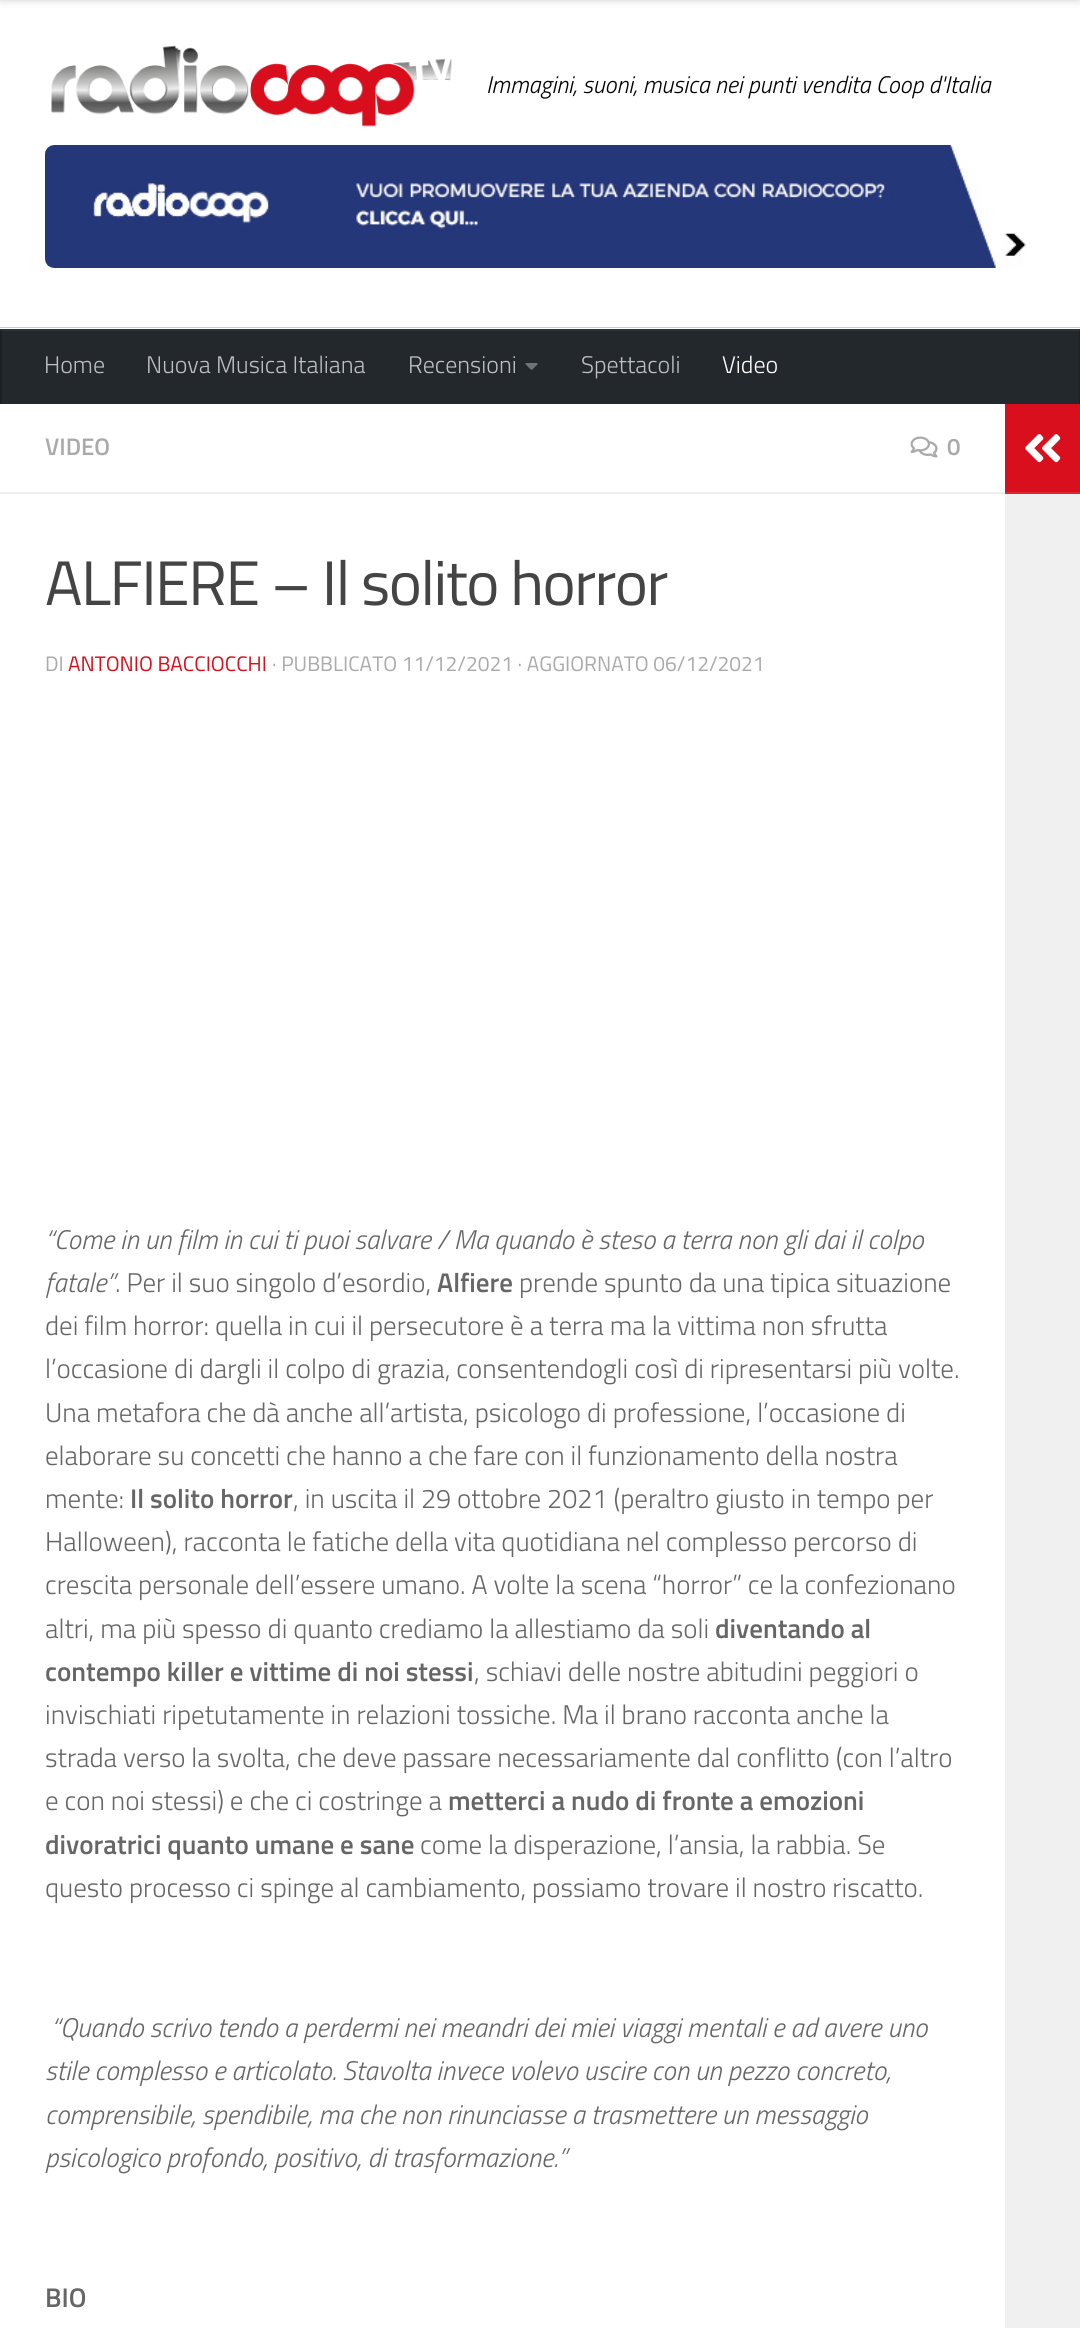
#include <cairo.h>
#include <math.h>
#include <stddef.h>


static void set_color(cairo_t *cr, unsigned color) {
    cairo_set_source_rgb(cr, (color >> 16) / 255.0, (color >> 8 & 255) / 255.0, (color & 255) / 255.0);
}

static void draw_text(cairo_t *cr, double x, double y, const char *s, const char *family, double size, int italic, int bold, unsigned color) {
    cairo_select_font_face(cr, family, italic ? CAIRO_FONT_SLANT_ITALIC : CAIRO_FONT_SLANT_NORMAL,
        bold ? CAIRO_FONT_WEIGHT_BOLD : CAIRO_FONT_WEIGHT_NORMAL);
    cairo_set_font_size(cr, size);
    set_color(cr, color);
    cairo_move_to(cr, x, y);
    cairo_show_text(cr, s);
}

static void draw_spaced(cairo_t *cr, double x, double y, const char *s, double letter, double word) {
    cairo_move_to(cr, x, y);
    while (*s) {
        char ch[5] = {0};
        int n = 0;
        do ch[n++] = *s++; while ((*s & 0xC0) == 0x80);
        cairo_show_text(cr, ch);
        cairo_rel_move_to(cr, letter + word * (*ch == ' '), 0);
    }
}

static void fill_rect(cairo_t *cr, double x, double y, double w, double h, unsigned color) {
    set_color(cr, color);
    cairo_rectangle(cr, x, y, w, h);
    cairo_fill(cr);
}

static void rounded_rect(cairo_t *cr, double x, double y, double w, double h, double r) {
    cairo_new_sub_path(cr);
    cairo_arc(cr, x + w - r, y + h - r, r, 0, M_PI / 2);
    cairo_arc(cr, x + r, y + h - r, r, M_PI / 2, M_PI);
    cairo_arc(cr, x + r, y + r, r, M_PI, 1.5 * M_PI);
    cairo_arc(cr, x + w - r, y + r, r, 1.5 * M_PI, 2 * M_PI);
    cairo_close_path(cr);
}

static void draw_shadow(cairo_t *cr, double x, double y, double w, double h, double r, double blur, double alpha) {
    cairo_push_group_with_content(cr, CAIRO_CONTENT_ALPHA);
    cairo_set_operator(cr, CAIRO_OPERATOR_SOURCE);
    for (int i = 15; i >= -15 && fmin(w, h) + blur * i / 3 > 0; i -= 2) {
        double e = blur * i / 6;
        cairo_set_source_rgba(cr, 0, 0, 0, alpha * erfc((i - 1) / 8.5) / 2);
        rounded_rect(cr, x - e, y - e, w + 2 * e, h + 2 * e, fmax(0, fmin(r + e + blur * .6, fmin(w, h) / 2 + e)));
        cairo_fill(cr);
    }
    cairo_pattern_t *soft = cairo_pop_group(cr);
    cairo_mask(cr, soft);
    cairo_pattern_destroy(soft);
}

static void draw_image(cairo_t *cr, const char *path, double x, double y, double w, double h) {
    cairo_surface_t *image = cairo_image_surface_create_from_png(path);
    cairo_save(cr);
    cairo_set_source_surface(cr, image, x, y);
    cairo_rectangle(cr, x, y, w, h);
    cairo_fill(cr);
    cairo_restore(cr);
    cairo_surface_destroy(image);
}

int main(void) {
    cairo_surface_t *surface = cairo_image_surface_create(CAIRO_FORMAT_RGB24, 1080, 2328);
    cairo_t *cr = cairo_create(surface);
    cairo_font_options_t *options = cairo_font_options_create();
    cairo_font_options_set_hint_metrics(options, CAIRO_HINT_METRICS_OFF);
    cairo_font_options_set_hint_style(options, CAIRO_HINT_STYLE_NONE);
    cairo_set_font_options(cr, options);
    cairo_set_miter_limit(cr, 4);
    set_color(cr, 0xFFFFFF);
    cairo_paint(cr);
    set_color(cr, 0x000000);
    draw_shadow(cr, 0, -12, 1080, 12, 0, 4, 0.2);
    draw_image(cr, "assets/img1.png", 51, 45, 401, 82);
    draw_text(cr, 486, 93, "Immagini, suoni, musica nei punti vendita Coop d'Italia", "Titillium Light", 24, 1, 0, 0x000000);
    draw_image(cr, "assets/img2.png", 45, 145, 982, 123);
    fill_rect(cr, 0, 327, 1080, 1, 0xCCCCCC);
    fill_rect(cr, 2, 331, 1077, 73, 0x23282D);
    fill_rect(cr, 0, 329, 1080, 2, 0x2E3338);
    fill_rect(cr, 1079, 329, 1, 75, 0x1C2024);
    fill_rect(cr, 1079, 329, 1, 2, 0x272B2F);
    fill_rect(cr, 0, 329, 2, 75, 0x1C2024);
    fill_rect(cr, 0, 329, 2, 2, 0x272B2F);
    draw_text(cr, 44, 373, "Home", "Titillium Light", 24, 0, 0, 0xBDBFC0);
    draw_text(cr, 146, 373, "Nuova Musica Italiana", "Titillium Light", 24, 0, 0, 0xBDBFC0);
    draw_text(cr, 408, 373, "Recensioni", "Titillium Light", 24, 0, 0, 0xBDBFC0);
    draw_image(cr, "assets/img3.png", 525, 363, 13, 7);
    draw_text(cr, 581, 373, "Spettacoli", "Titillium Light", 24, 0, 0, 0xBDBFC0);
    draw_text(cr, 722, 373, "Video", "Titillium Light", 24, 0, 0, 0xFFFFFF);
    fill_rect(cr, 0, 492, 1005, 2, 0xEEEEEE);
    draw_text(cr, 45, 455, "VIDEO", "Titillium SemiBold", 24, 0, 0, 0xAAAAAA);
    draw_image(cr, "assets/img4.png", 910, 436, 28, 22);
    draw_text(cr, 947, 455, "0", "Titillium SemiBold", 24, 0, 0, 0xAAAAAA);
    cairo_select_font_face(cr, "Titillium", CAIRO_FONT_SLANT_NORMAL, CAIRO_FONT_WEIGHT_NORMAL);
    cairo_set_font_size(cr, 62.9);
    set_color(cr, 0x444444);
    draw_spaced(cr, 45, 605, "ALFIERE – Il solito horror", -1.5, 0);
    draw_text(cr, 45, 671, "DI", "Titillium", 21, 0, 0, 0xAAAAAA);
    draw_text(cr, 68, 671, "ANTONIO BACCIOCCHI", "Titillium", 21, 0, 0, 0xD90F1D);
    draw_text(cr, 272, 671, "· PUBBLICATO 11/12/2021 · AGGIORNATO 06/12/2021", "Titillium", 21, 0, 0, 0xAAAAAA);
    draw_text(cr, 45, 1249, "“Come in un film in cui ti puoi salvare / Ma quando è steso a terra non gli dai il colpo", "Titillium Light", 27, 1, 0, 0x666666);
    draw_text(cr, 45, 1292, "fatale”", "Titillium Light", 27, 1, 0, 0x666666);
    draw_text(cr, 115, 1292, ". Per il suo singolo d’esordio,", "Titillium Light", 27, 0, 0, 0x666666);
    draw_text(cr, 437, 1292, "Alfiere", "Titillium SemiBold", 27, 0, 0, 0x666666);
    draw_text(cr, 519, 1292, "prende spunto da una tipica situazione", "Titillium Light", 27, 0, 0, 0x666666);
    draw_text(cr, 45, 1335, "dei film horror: quella in cui il persecutore è a terra ma la vittima non sfrutta", "Titillium Light", 27, 0, 0, 0x666666);
    draw_text(cr, 45, 1378, "l’occasione di dargli il colpo di grazia, consentendogli così di ripresentarsi più volte.", "Titillium Light", 27, 0, 0, 0x666666);
    draw_text(cr, 45, 1422, "Una metafora che dà anche all’artista, psicologo di professione, l’occasione di", "Titillium Light", 27, 0, 0, 0x666666);
    draw_text(cr, 45, 1465, "elaborare su concetti che hanno a che fare con il funzionamento della nostra", "Titillium Light", 27, 0, 0, 0x666666);
    draw_text(cr, 45, 1508, "mente:", "Titillium Light", 27, 0, 0, 0x666666);
    draw_text(cr, 130, 1508, "Il solito horror", "Titillium SemiBold", 27, 0, 0, 0x666666);
    draw_text(cr, 293, 1508, ", in uscita il 29 ottobre 2021 (peraltro giusto in tempo per", "Titillium Light", 27, 0, 0, 0x666666);
    draw_text(cr, 45, 1551, "Halloween), racconta le fatiche della vita quotidiana nel complesso percorso di", "Titillium Light", 27, 0, 0, 0x666666);
    draw_text(cr, 45, 1594, "crescita personale dell’essere umano. A volte la scena “horror” ce la confezionano", "Titillium Light", 27, 0, 0, 0x666666);
    draw_text(cr, 45, 1638, "altri, ma più spesso di quanto crediamo la allestiamo da soli", "Titillium Light", 27, 0, 0, 0x666666);
    draw_text(cr, 715, 1638, "diventando al", "Titillium SemiBold", 27, 0, 0, 0x666666);
    draw_text(cr, 45, 1681, "contempo killer e vittime di noi stessi", "Titillium SemiBold", 27, 0, 0, 0x666666);
    draw_text(cr, 474, 1681, ", schiavi delle nostre abitudini peggiori o", "Titillium Light", 27, 0, 0, 0x666666);
    draw_text(cr, 45, 1724, "invischiati ripetutamente in relazioni tossiche. Ma il brano racconta anche la", "Titillium Light", 27, 0, 0, 0x666666);
    draw_text(cr, 45, 1767, "strada verso la svolta, che deve passare necessariamente dal conflitto (con l’altro", "Titillium Light", 27, 0, 0, 0x666666);
    draw_text(cr, 45, 1810, "e con noi stessi) e che ci costringe a", "Titillium Light", 27, 0, 0, 0x666666);
    draw_text(cr, 448, 1810, "metterci a nudo di fronte a emozioni", "Titillium SemiBold", 27, 0, 0, 0x666666);
    draw_text(cr, 45, 1854, "divoratrici quanto umane e sane", "Titillium SemiBold", 27, 0, 0, 0x666666);
    draw_text(cr, 420, 1854, "come la disperazione, l’ansia, la rabbia. Se", "Titillium Light", 27, 0, 0, 0x666666);
    draw_text(cr, 45, 1897, "questo processo ci spinge al cambiamento, possiamo trovare il nostro riscatto.", "Titillium Light", 27, 0, 0, 0x666666);
    draw_text(cr, 51, 2037, "“Quando scrivo tendo a perdermi nei meandri dei miei viaggi mentali e ad avere uno", "Titillium Light", 27, 1, 0, 0x666666);
    draw_text(cr, 45, 2080, "stile complesso e articolato. Stavolta invece volevo uscire con un pezzo concreto,", "Titillium Light", 27, 1, 0, 0x666666);
    draw_text(cr, 45, 2124, "comprensibile, spendibile, ma che non rinunciasse a trasmettere un messaggio", "Titillium Light", 27, 1, 0, 0x666666);
    draw_text(cr, 45, 2167, "psicologico profondo, positivo, di trasformazione.”", "Titillium Light", 27, 1, 0, 0x666666);
    draw_text(cr, 45, 2307, "BIO", "Titillium SemiBold", 27, 0, 0, 0x666666);
    fill_rect(cr, 1005, 404, 75, 88, 0xD90F1D);
    fill_rect(cr, 1005, 492, 75, 2, 0xDD2734);
    draw_image(cr, "assets/img5.png", 1025, 434, 36, 29);
    fill_rect(cr, 1005, 494, 75, 1834, 0xF0F0F0);
    cairo_surface_write_to_png(surface, "output.png");
    cairo_font_options_destroy(options);
    cairo_destroy(cr);
    cairo_surface_destroy(surface);
    return 0;
}
